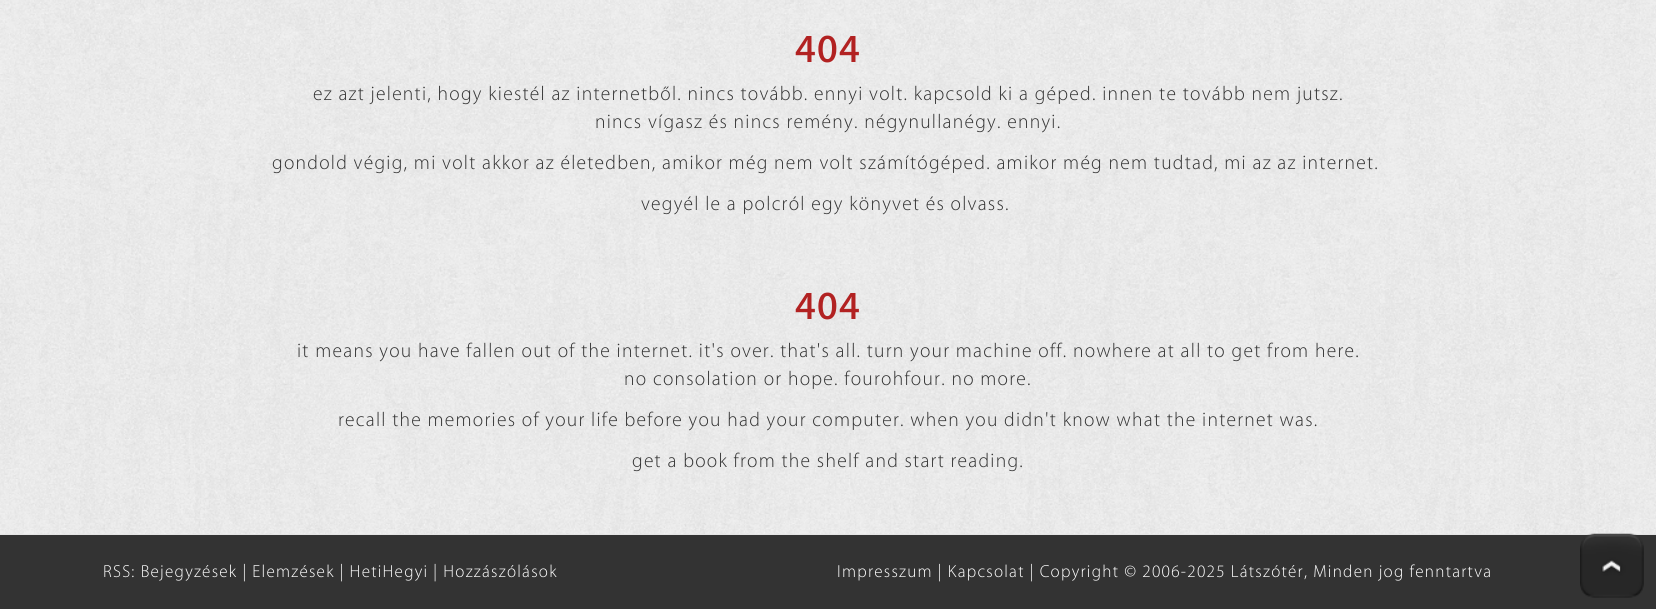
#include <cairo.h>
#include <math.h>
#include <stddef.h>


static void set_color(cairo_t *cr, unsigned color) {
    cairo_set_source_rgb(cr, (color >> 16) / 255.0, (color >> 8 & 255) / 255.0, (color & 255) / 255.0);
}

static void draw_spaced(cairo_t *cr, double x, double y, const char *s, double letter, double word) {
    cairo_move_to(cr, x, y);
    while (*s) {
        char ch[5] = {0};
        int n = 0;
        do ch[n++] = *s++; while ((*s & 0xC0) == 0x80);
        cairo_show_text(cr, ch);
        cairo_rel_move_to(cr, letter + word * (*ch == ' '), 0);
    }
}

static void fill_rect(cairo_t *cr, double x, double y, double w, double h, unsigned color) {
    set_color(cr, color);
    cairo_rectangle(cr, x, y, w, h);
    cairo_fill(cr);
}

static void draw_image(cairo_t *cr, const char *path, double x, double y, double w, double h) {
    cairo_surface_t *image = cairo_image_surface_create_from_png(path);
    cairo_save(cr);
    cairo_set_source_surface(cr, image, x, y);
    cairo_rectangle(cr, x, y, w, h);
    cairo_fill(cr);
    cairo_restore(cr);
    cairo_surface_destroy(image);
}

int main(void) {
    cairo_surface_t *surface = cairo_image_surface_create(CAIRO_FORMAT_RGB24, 1656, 609);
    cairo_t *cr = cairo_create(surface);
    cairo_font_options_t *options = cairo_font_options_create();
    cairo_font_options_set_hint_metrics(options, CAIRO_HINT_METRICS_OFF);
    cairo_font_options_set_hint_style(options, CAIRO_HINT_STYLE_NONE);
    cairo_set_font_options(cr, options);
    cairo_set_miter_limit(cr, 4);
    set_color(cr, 0xFFFFFF);
    cairo_paint(cr);
    draw_image(cr, "assets/img1.png", 0, 0, 1656, 534);
    cairo_select_font_face(cr, "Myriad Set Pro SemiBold", CAIRO_FONT_SLANT_NORMAL, CAIRO_FONT_WEIGHT_NORMAL);
    cairo_set_font_size(cr, 40);
    set_color(cr, 0xB22222);
    draw_spaced(cr, 795, 62, "404", 1.25, 0);
    cairo_select_font_face(cr, "Myriad Set Pro Thin", CAIRO_FONT_SLANT_NORMAL, CAIRO_FONT_WEIGHT_NORMAL);
    cairo_set_font_size(cr, 20);
    set_color(cr, 0x333333);
    draw_spaced(cr, 313, 100, "ez azt jelenti, hogy kiestél az internetből. nincs tovább. ennyi volt. kapcsold ki a géped. innen te tovább nem jutsz.", 1.25, 0);
    draw_spaced(cr, 595, 128, "nincs vígasz és nincs remény. négynullanégy. ennyi.", 1.25, 0);
    draw_spaced(cr, 272, 169, "gondold végig, mi volt akkor az életedben, amikor még nem volt számítógéped. amikor még nem tudtad, mi az az internet.", 1.25, 0);
    draw_spaced(cr, 641, 210, "vegyél le a polcról egy könyvet és olvass.", 1.25, 0);
    cairo_select_font_face(cr, "Myriad Set Pro SemiBold", CAIRO_FONT_SLANT_NORMAL, CAIRO_FONT_WEIGHT_NORMAL);
    cairo_set_font_size(cr, 40);
    set_color(cr, 0xB22222);
    draw_spaced(cr, 795, 319, "404", 1.25, 0);
    cairo_select_font_face(cr, "Myriad Set Pro Thin", CAIRO_FONT_SLANT_NORMAL, CAIRO_FONT_WEIGHT_NORMAL);
    cairo_set_font_size(cr, 20);
    set_color(cr, 0x333333);
    draw_spaced(cr, 297, 357, "it means you have fallen out of the internet. it's over. that's all. turn your machine off. nowhere at all to get from here.", 1.25, 0);
    draw_spaced(cr, 624, 385, "no consolation or hope. fourohfour. no more.", 1.25, 0);
    draw_spaced(cr, 338, 426, "recall the memories of your life before you had your computer. when you didn't know what the internet was.", 1.25, 0);
    draw_spaced(cr, 632, 467, "get a book from the shelf and start reading.", 1.25, 0);
    fill_rect(cr, 0, 535, 1656, 74, 0x333333);
    fill_rect(cr, 0, 534, 1656, 1, 0xE5E5E5);
    cairo_set_font_size(cr, 17.5);
    set_color(cr, 0xFFFFFF);
    draw_spaced(cr, 103, 577, "RSS: Bejegyzések | Elemzések | HetiHegyi | Hozzászólások", 1.25, 0);
    draw_spaced(cr, 837, 577, "Impresszum | Kapcsolat | Copyright © 2006-2025 Látszótér, Minden jog fenntartva", 1.25, 0);
    draw_image(cr, "assets/img2.png", 1580, 533, 64, 65);
    cairo_surface_write_to_png(surface, "output.png");
    cairo_font_options_destroy(options);
    cairo_destroy(cr);
    cairo_surface_destroy(surface);
    return 0;
}
